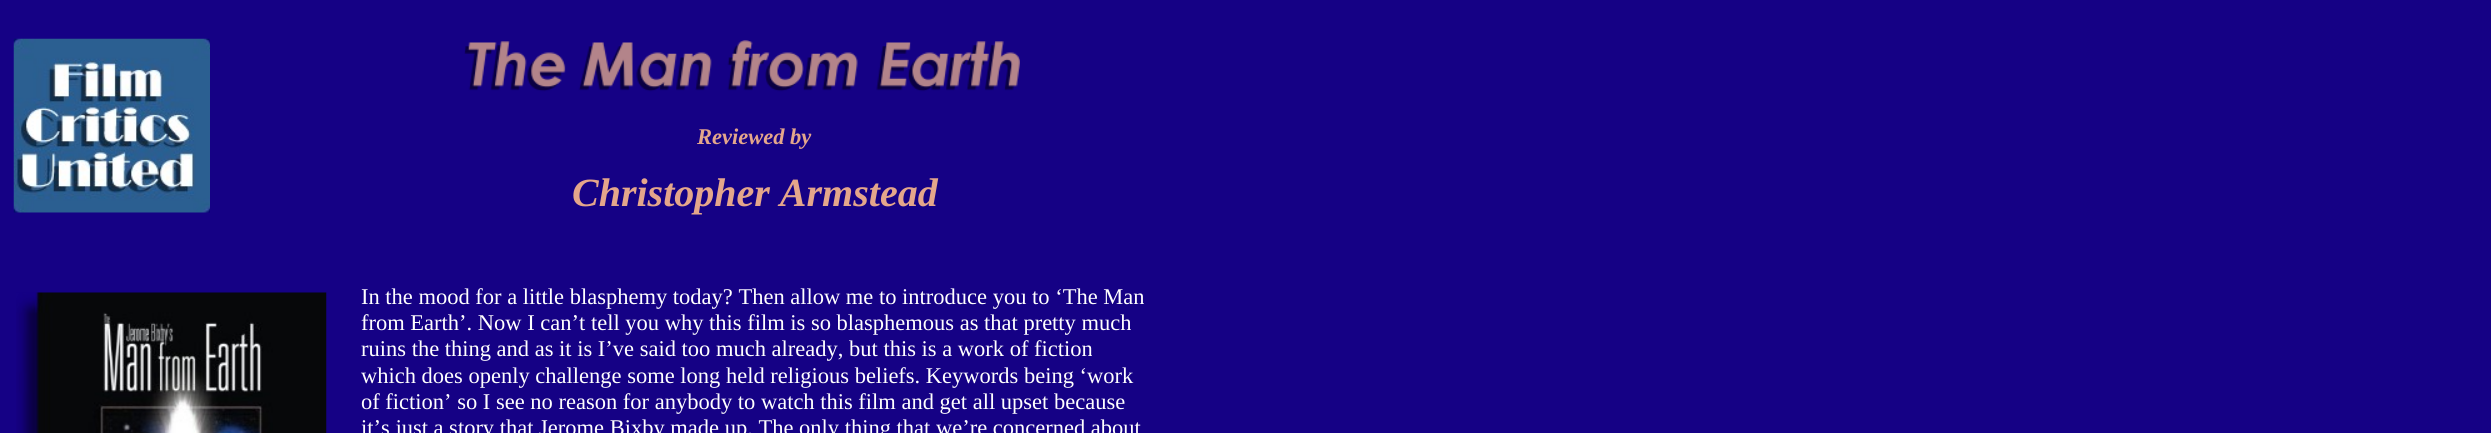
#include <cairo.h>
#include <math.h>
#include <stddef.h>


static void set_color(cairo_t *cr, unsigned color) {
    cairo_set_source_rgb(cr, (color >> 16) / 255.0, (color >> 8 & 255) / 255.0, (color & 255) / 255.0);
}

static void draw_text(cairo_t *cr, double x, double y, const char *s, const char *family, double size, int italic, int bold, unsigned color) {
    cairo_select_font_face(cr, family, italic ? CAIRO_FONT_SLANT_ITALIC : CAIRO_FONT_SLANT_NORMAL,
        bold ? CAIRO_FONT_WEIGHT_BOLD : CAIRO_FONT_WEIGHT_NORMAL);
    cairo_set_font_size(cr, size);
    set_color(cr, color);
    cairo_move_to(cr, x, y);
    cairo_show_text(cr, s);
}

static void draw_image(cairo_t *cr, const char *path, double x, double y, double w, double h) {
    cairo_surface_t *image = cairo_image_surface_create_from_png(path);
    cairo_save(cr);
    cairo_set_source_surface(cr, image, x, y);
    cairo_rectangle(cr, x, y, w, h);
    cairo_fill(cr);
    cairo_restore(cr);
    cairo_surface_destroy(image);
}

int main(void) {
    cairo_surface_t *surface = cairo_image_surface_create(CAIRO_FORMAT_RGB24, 2491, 433);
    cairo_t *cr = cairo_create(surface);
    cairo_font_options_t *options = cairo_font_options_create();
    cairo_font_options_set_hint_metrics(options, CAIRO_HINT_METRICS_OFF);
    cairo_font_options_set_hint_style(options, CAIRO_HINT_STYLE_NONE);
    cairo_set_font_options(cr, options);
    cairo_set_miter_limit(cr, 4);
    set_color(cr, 0x150185);
    cairo_paint(cr);
    draw_image(cr, "assets/img1.png", 13, 38, 197, 175);
    draw_image(cr, "assets/img2.png", 464, 40, 556, 52);
    draw_text(cr, 697, 144, "Reviewed by", "Liberation Serif", 22.5, 1, 1, 0xE4A68B);
    draw_text(cr, 572, 206, "Christopher Armstead", "Liberation Serif", 40, 1, 1, 0xE4A68B);
    draw_image(cr, "assets/img3.png", 16, 292, 311, 141);
    draw_text(cr, 361, 304, "In the mood for a little blasphemy today? Then allow me to introduce you to ‘The Man", "Liberation Serif", 22.5, 0, 0, 0xFFFFFF);
    draw_text(cr, 361, 330, "from Earth’. Now I can’t tell you why this film is so blasphemous as that pretty much", "Liberation Serif", 22.5, 0, 0, 0xFFFFFF);
    draw_text(cr, 361, 356, "ruins the thing and as it is I’ve said too much already, but this is a work of fiction", "Liberation Serif", 22.5, 0, 0, 0xFFFFFF);
    draw_text(cr, 361, 383, "which does openly challenge some long held religious beliefs. Keywords being ‘work", "Liberation Serif", 22.5, 0, 0, 0xFFFFFF);
    draw_text(cr, 361, 409, "of fiction’ so I see no reason for anybody to watch this film and get all upset because", "Liberation Serif", 22.5, 0, 0, 0xFFFFFF);
    draw_text(cr, 361, 435, "it’s just a story that Jerome Bixby made up. The only thing that we’re concerned about", "Liberation Serif", 22.5, 0, 0, 0xFFFFFF);
    cairo_surface_write_to_png(surface, "output.png");
    cairo_font_options_destroy(options);
    cairo_destroy(cr);
    cairo_surface_destroy(surface);
    return 0;
}
